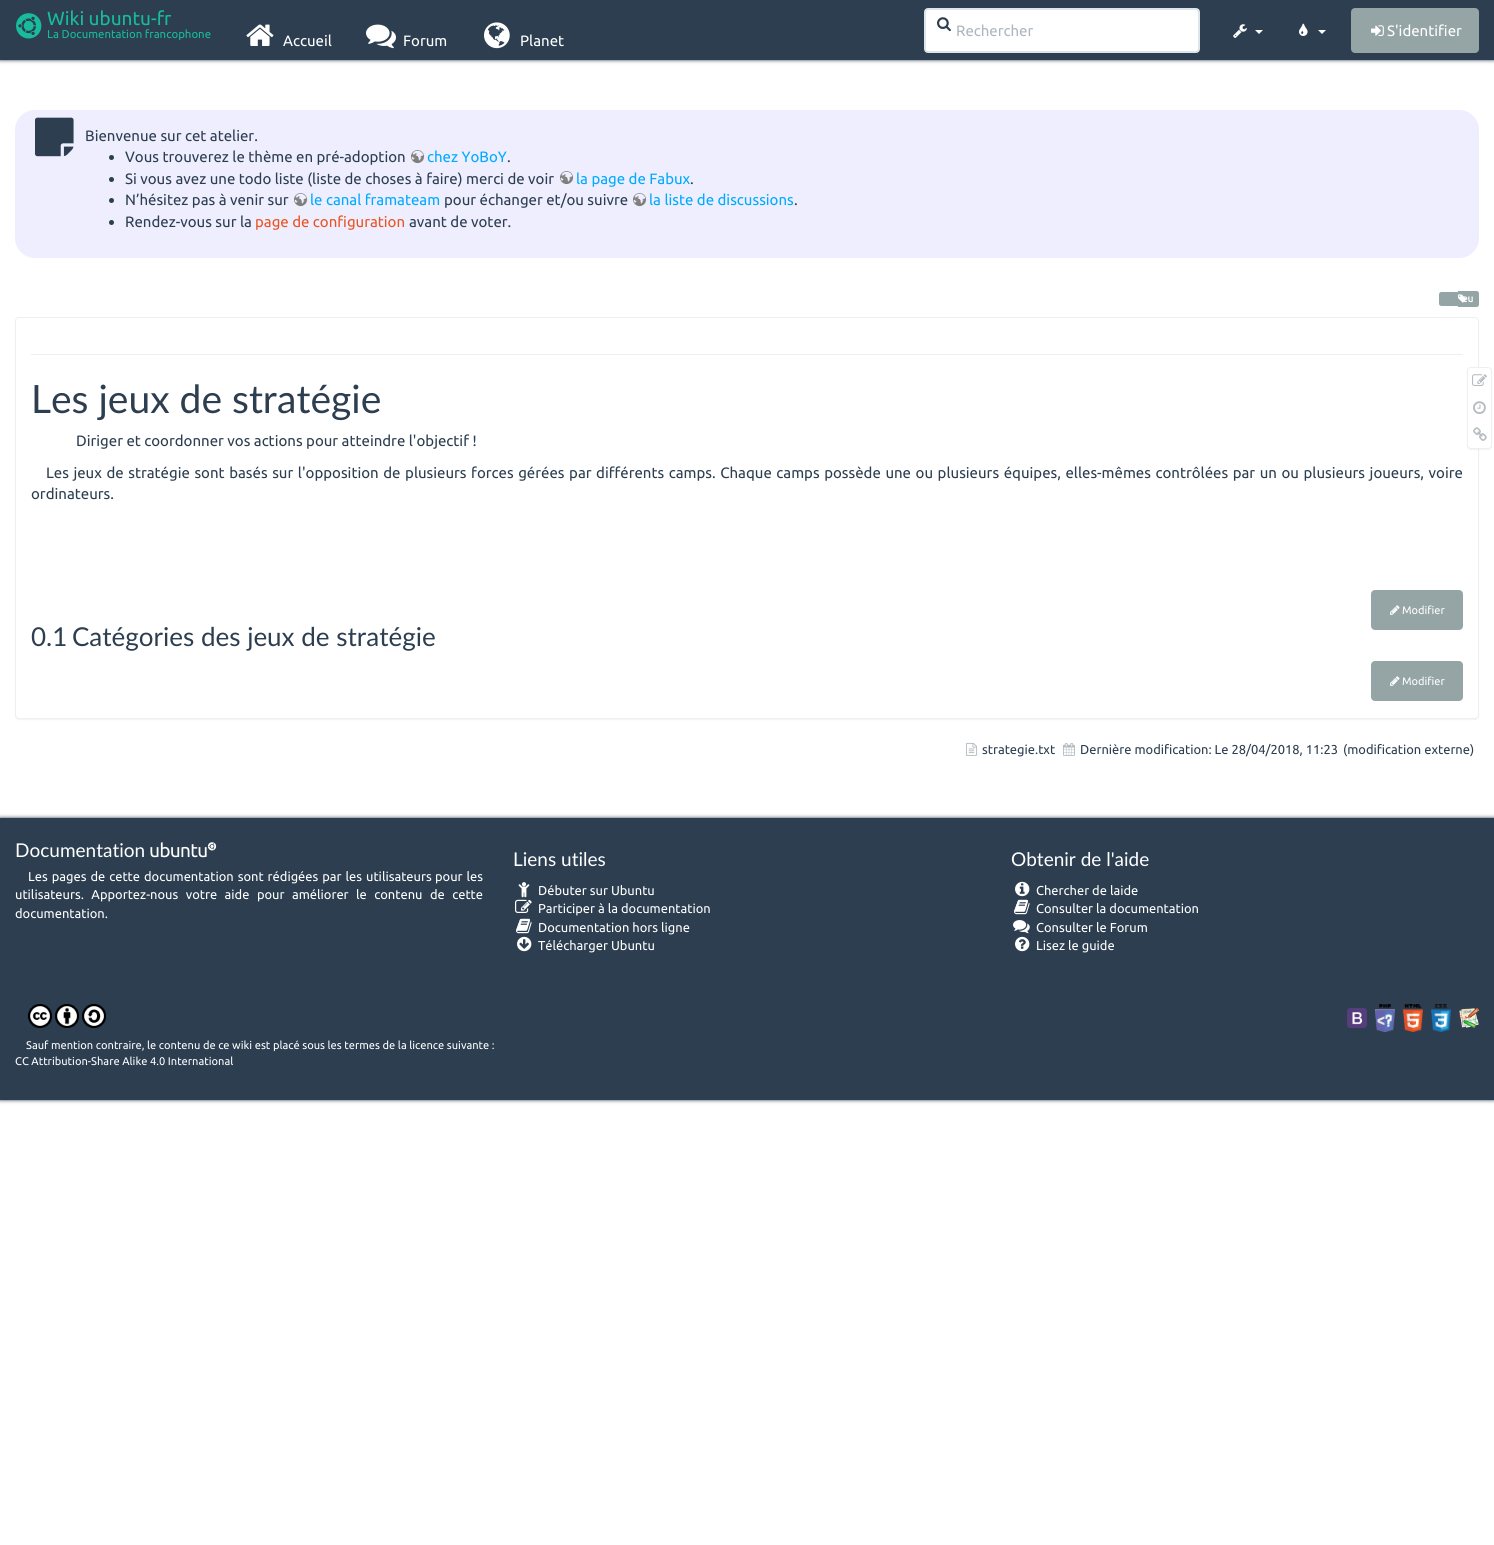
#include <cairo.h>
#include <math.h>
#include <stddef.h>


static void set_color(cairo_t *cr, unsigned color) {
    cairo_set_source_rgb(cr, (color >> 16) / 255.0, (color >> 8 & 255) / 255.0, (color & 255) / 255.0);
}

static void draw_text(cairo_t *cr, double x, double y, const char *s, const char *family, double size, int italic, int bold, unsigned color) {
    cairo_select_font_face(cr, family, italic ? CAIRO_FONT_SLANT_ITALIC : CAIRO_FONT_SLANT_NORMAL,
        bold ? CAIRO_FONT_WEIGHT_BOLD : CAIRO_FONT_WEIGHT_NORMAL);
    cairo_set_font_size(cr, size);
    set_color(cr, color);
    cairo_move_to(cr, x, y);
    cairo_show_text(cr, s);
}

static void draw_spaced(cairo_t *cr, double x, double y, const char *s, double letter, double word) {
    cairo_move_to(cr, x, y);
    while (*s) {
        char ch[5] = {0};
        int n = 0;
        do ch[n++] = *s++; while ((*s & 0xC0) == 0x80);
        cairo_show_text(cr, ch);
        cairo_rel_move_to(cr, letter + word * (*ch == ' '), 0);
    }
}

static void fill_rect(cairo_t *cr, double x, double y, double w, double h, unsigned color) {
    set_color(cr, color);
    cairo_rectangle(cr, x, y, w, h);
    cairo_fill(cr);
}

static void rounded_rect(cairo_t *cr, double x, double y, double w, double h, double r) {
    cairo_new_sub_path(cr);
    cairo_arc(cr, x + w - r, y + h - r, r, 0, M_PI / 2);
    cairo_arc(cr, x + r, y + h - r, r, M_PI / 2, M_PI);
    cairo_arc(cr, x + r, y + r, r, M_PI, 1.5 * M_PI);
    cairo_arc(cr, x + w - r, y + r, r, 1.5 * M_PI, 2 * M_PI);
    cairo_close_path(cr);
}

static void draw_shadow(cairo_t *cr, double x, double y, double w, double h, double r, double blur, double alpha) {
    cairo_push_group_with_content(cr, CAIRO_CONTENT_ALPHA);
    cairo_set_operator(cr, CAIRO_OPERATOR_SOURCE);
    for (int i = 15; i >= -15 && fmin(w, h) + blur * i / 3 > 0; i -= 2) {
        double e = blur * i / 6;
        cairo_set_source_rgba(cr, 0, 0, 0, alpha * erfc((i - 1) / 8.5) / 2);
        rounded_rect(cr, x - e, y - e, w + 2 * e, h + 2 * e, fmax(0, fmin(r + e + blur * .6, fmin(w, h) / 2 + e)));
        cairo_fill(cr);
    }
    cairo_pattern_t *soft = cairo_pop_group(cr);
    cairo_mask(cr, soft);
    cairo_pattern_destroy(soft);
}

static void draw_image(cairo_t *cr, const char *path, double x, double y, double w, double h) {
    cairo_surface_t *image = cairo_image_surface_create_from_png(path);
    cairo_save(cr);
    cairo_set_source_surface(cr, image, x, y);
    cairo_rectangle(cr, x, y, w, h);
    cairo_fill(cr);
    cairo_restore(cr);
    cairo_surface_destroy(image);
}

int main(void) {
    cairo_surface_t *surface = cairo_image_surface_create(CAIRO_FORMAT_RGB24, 1494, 1545);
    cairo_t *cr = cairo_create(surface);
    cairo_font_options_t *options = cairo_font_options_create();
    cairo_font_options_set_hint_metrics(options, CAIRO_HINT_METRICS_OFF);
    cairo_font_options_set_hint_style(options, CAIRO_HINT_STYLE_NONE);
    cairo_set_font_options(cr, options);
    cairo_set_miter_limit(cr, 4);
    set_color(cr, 0xFFFFFF);
    cairo_paint(cr);
    set_color(cr, 0x2C3E50);
    draw_shadow(cr, 0, 0, 1494, 60, 0, 2, 1);
    fill_rect(cr, 0, 0, 1494, 60, 0x2C3E50);
    draw_image(cr, "assets/img1.png", 16, 13, 26, 26);
    draw_text(cr, 47, 25, "Wiki ubuntu-fr", "Ubuntu", 19, 0, 0, 0x18BC9C);
    draw_text(cr, 47, 38, "La Documentation francophone", "Ubuntu", 11.4, 0, 0, 0x18BC9C);
    set_color(cr, 0xFFFFFF);
    rounded_rect(cr, 925, 9, 274, 43, 3);
    cairo_fill_preserve(cr);
    set_color(cr, 0xDCE4EC);
    cairo_stroke(cr);
    draw_image(cr, "assets/img2.png", 937, 17, 14, 15);
    draw_text(cr, 956, 36, "Rechercher", "Ubuntu", 15, 0, 0, 0xACB6C0);
    draw_image(cr, "assets/img3.png", 1233, 24, 14, 14);
    set_color(cr, 0xFFFFFF);
    cairo_new_path(cr);
    cairo_move_to(cr, 1255, 30);
    cairo_line_to(cr, 1263, 30);
    cairo_line_to(cr, 1259, 34);
    cairo_close_path(cr);
    cairo_fill(cr);
    draw_image(cr, "assets/img4.png", 1299, 23, 9, 13);
    cairo_new_path(cr);
    cairo_move_to(cr, 1318, 30);
    cairo_line_to(cr, 1326, 30);
    cairo_line_to(cr, 1322, 34);
    cairo_close_path(cr);
    cairo_fill(cr);
    set_color(cr, 0x95A5A6);
    rounded_rect(cr, 1352, 9, 126, 43, 3);
    cairo_fill_preserve(cr);
    cairo_stroke(cr);
    draw_image(cr, "assets/img5.png", 1371, 25, 13, 11);
    draw_text(cr, 1387, 36, "S'identifier", "Ubuntu", 15, 0, 0, 0xFFFFFF);
    draw_image(cr, "assets/img6.png", 246, 24, 28, 22);
    draw_text(cr, 283, 46, "Accueil", "Ubuntu", 15, 0, 0, 0xFFFFFF);
    draw_image(cr, "assets/img7.png", 366, 24, 30, 25);
    draw_text(cr, 403, 46, "Forum", "Ubuntu", 15, 0, 0, 0xFFFFFF);
    draw_image(cr, "assets/img8.png", 484, 22, 26, 27);
    draw_text(cr, 520, 46, "Planet", "Ubuntu", 15, 0, 0, 0xFFFFFF);
    set_color(cr, 0xEEEEFF);
    rounded_rect(cr, 15, 110, 1464, 148, 20);
    cairo_fill(cr);
    draw_image(cr, "assets/img9.png", 35, 117, 39, 40);
    draw_text(cr, 85, 141, "Bienvenue sur cet atelier.", "Ubuntu", 15, 0, 0, 0x2C3E50);
    cairo_new_path(cr);
    cairo_arc(cr, 111.5, 157.5, 2.5, 0, 2 * M_PI);
    cairo_fill(cr);
    draw_text(cr, 125, 162, "Vous trouverez le thème en pré-adoption", "Ubuntu", 15, 0, 0, 0x2C3E50);
    draw_image(cr, "assets/img10.png", 411, 150, 14, 14);
    draw_text(cr, 427, 162, "chez YoBoY", "Ubuntu", 15, 0, 0, 0x00AAFF);
    draw_text(cr, 507, 162, ".", "Ubuntu", 15, 0, 0, 0x2C3E50);
    cairo_new_path(cr);
    cairo_arc(cr, 111.5, 179.5, 2.5, 0, 2 * M_PI);
    cairo_fill(cr);
    draw_text(cr, 125, 184, "Si vous avez une todo liste (liste de choses à faire) merci de voir", "Ubuntu", 15, 0, 0, 0x2C3E50);
    draw_image(cr, "assets/img10.png", 560, 171, 14, 14);
    draw_text(cr, 576, 184, "la page de Fabux", "Ubuntu", 15, 0, 0, 0x00AAFF);
    draw_text(cr, 690, 184, ".", "Ubuntu", 15, 0, 0, 0x2C3E50);
    cairo_new_path(cr);
    cairo_arc(cr, 111.5, 200.5, 2.5, 0, 2 * M_PI);
    cairo_fill(cr);
    draw_text(cr, 125, 205, "N’hésitez pas à venir sur", "Ubuntu", 15, 0, 0, 0x2C3E50);
    draw_image(cr, "assets/img10.png", 294, 193, 14, 14);
    draw_text(cr, 310, 205, "le canal framateam", "Ubuntu", 15, 0, 0, 0x00AAFF);
    draw_text(cr, 444, 205, "pour échanger et/ou suivre", "Ubuntu", 15, 0, 0, 0x2C3E50);
    draw_image(cr, "assets/img10.png", 633, 193, 14, 14);
    draw_text(cr, 649, 205, "la liste de discussions", "Ubuntu", 15, 0, 0, 0x00AAFF);
    draw_text(cr, 794, 205, ".", "Ubuntu", 15, 0, 0, 0x2C3E50);
    cairo_new_path(cr);
    cairo_arc(cr, 111.5, 222.5, 2.5, 0, 2 * M_PI);
    cairo_fill(cr);
    draw_text(cr, 125, 227, "Rendez-vous sur la", "Ubuntu", 15, 0, 0, 0x2C3E50);
    draw_text(cr, 255, 227, "page de configuration", "Ubuntu", 15, 0, 0, 0xE95420);
    draw_text(cr, 409, 227, "avant de voter.", "Ubuntu", 15, 0, 0, 0x2C3E50);
    set_color(cr, 0x95A5A6);
    cairo_new_path(cr);
    cairo_move_to(cr, 1441.5, 292);
    cairo_line_to(cr, 1458, 292);
    cairo_line_to(cr, 1458, 306);
    cairo_line_to(cr, 1441.5, 306);
    cairo_curve_to(cr, 1440, 306, 1439, 305, 1439, 303.5);
    cairo_line_to(cr, 1439, 294.5);
    cairo_curve_to(cr, 1439, 293, 1440, 292, 1441.5, 292);
    cairo_close_path(cr);
    cairo_fill(cr);
    fill_rect(cr, 1458, 291, 2, 16, 0x95A5A6);
    cairo_new_path(cr);
    cairo_move_to(cr, 1460, 291);
    cairo_line_to(cr, 1476.5, 291);
    cairo_curve_to(cr, 1478, 291, 1479, 292, 1479, 293.5);
    cairo_line_to(cr, 1479, 304.5);
    cairo_curve_to(cr, 1479, 306, 1478, 307, 1476.5, 307);
    cairo_line_to(cr, 1460, 307);
    cairo_close_path(cr);
    cairo_fill(cr);
    draw_image(cr, "assets/img11.png", 1458, 294, 9, 9);
    draw_text(cr, 1462, 302, "eu", "Ubuntu", 10, 0, 1, 0xFFFFFF);
    set_color(cr, 0x000000);
    draw_shadow(cr, 15, 318, 1464, 402, 4, 0.5, 0.05);
    set_color(cr, 0xFFFFFF);
    rounded_rect(cr, 15.5, 317.5, 1463, 401, 3.5);
    cairo_fill_preserve(cr);
    set_color(cr, 0xECF0F1);
    cairo_set_line_width(cr, 1);
    cairo_stroke(cr);
    fill_rect(cr, 31, 354, 1432, 1, 0xECF0F1);
    draw_text(cr, 31, 413, "Les jeux de stratégie", "Lato", 39, 0, 0, 0x2C3E50);
    draw_text(cr, 76, 446, "Diriger et coordonner vos actions pour atteindre l'objectif !", "Ubuntu", 15, 0, 0, 0x2C3E50);
    draw_spaced(cr, 46, 478, "Les jeux de stratégie sont basés sur l'opposition de plusieurs forces gérées par différents camps. Chaque camps possède une ou plusieurs équipes, elles-mêmes contrôlées par un ou plusieurs joueurs, voire", 0, 1.1);
    draw_text(cr, 31, 499, "ordinateurs.", "Ubuntu", 15, 0, 0, 0x2C3E50);
    set_color(cr, 0x95A5A6);
    rounded_rect(cr, 1372, 591, 90, 38, 3);
    cairo_fill_preserve(cr);
    cairo_set_line_width(cr, 2);
    cairo_stroke(cr);
    draw_image(cr, "assets/img12.png", 1390, 605, 10, 10);
    draw_text(cr, 1402, 614, "Modifier", "Ubuntu", 11, 0, 0, 0xFFFFFF);
    draw_text(cr, 31, 646, "0.1", "Lato", 26, 0, 0, 0x2C3E50);
    draw_text(cr, 72, 646, "Catégories des jeux de stratégie", "Lato", 26, 0, 0, 0x2C3E50);
    set_color(cr, 0x95A5A6);
    rounded_rect(cr, 1372, 662, 90, 38, 3);
    cairo_fill_preserve(cr);
    cairo_stroke(cr);
    draw_image(cr, "assets/img12.png", 1390, 676, 10, 10);
    draw_text(cr, 1402, 685, "Modifier", "Ubuntu", 11, 0, 0, 0xFFFFFF);
    set_color(cr, 0x000000);
    draw_shadow(cr, 1467, 368, 25, 82, 4, 0.5, 0.05);
    set_color(cr, 0xFFFFFF);
    rounded_rect(cr, 1467.5, 367.5, 24, 81, 3.5);
    cairo_fill_preserve(cr);
    set_color(cr, 0xECF0F1);
    cairo_set_line_width(cr, 1);
    cairo_stroke(cr);
    draw_image(cr, "assets/img13.png", 1472, 374, 15, 12);
    draw_image(cr, "assets/img14.png", 1473, 401, 13, 13);
    draw_image(cr, "assets/img15.png", 1473, 427, 14, 14);
    draw_image(cr, "assets/img16.png", 966, 742, 12, 14);
    draw_text(cr, 982, 754, "strategie.txt", "Ubuntu", 12.9, 0, 0, 0x2C3E50);
    draw_image(cr, "assets/img17.png", 1063, 743, 12, 13);
    draw_text(cr, 1080, 754, "Dernière modification: Le 28/04/2018, 11:23", "Ubuntu", 12.9, 0, 0, 0x2C3E50);
    draw_text(cr, 1343, 754, "(modification externe)", "Ubuntu", 12.9, 0, 0, 0x2C3E50);
    set_color(cr, 0x2C3E50);
    draw_shadow(cr, 0, 818, 1494, 282, 0, 2, 1);
    fill_rect(cr, 0, 818, 1494, 282, 0x2C3E50);
    draw_text(cr, 15, 857, "Documentation", "Lato", 19, 0, 0, 0xFFFFFF);
    draw_image(cr, "assets/img18.png", 150, 842, 67, 16);
    cairo_select_font_face(cr, "Ubuntu", CAIRO_FONT_SLANT_NORMAL, CAIRO_FONT_WEIGHT_NORMAL);
    cairo_set_font_size(cr, 12.9);
    draw_spaced(cr, 28, 881, "Les pages de cette documentation sont rédigées par les utilisateurs", 0, 1);
    draw_spaced(cr, 435, 881, "pour les", 0, 1);
    draw_spaced(cr, 15, 899, "utilisateurs. Apportez-nous votre aide pour améliorer", 0, 4.5);
    draw_spaced(cr, 356, 899, "le contenu de cette", 0, 4.5);
    draw_text(cr, 15, 918, "documentation.", "Ubuntu", 12.9, 0, 0, 0xFFFFFF);
    draw_text(cr, 513, 866, "Liens utiles", "Lato", 19, 0, 0, 0xFFFFFF);
    draw_image(cr, "assets/img19.png", 518, 882, 12, 16);
    draw_text(cr, 538, 895, "Débuter sur Ubuntu", "Ubuntu", 12.9, 0, 0, 0xFFFFFF);
    draw_image(cr, "assets/img20.png", 515, 899, 17, 14);
    draw_text(cr, 538, 913, "Participer à la documentation", "Ubuntu", 12.9, 0, 0, 0xFFFFFF);
    draw_image(cr, "assets/img21.png", 516, 918, 16, 16);
    draw_text(cr, 538, 932, "Documentation hors ligne", "Ubuntu", 12.9, 0, 0, 0xFFFFFF);
    draw_image(cr, "assets/img22.png", 517, 936, 15, 16);
    draw_text(cr, 538, 950, "Télécharger Ubuntu", "Ubuntu", 12.9, 0, 0, 0xFFFFFF);
    draw_text(cr, 1011, 866, "Obtenir de l'aide", "Lato", 19, 0, 0, 0xFFFFFF);
    draw_image(cr, "assets/img23.png", 1015, 881, 15, 16);
    draw_text(cr, 1036, 895, "Chercher de laide", "Ubuntu", 12.9, 0, 0, 0xFFFFFF);
    draw_image(cr, "assets/img21.png", 1014, 899, 16, 16);
    draw_text(cr, 1036, 913, "Consulter la documentation", "Ubuntu", 12.9, 0, 0, 0xFFFFFF);
    draw_image(cr, "assets/img24.png", 1013, 920, 17, 14);
    draw_text(cr, 1036, 932, "Consulter le Forum", "Ubuntu", 12.9, 0, 0, 0xFFFFFF);
    draw_image(cr, "assets/img25.png", 1015, 936, 15, 16);
    draw_text(cr, 1036, 950, "Lisez le guide", "Ubuntu", 12.9, 0, 0, 0xFFFFFF);
    draw_image(cr, "assets/img26.png", 1347, 1008, 20, 20);
    draw_image(cr, "assets/img27.png", 1375, 1004, 20, 28);
    draw_image(cr, "assets/img28.png", 1403, 1004, 20, 28);
    draw_image(cr, "assets/img29.png", 1431, 1004, 20, 28);
    draw_image(cr, "assets/img30.png", 1459, 1008, 20, 20);
    draw_image(cr, "assets/img31.png", 28, 1004, 24, 24);
    draw_image(cr, "assets/img32.png", 55, 1004, 24, 24);
    draw_image(cr, "assets/img33.png", 82, 1004, 24, 24);
    draw_text(cr, 26, 1049, "Sauf mention contraire, le contenu de ce wiki est placé sous les termes de la licence suivante :", "Ubuntu", 11.1, 0, 0, 0xFFFFFF);
    draw_text(cr, 15, 1065, "CC Attribution-Share Alike 4.0 International", "Ubuntu", 11.1, 0, 0, 0xFFFFFF);
    cairo_surface_write_to_png(surface, "output.png");
    cairo_font_options_destroy(options);
    cairo_destroy(cr);
    cairo_surface_destroy(surface);
    return 0;
}
